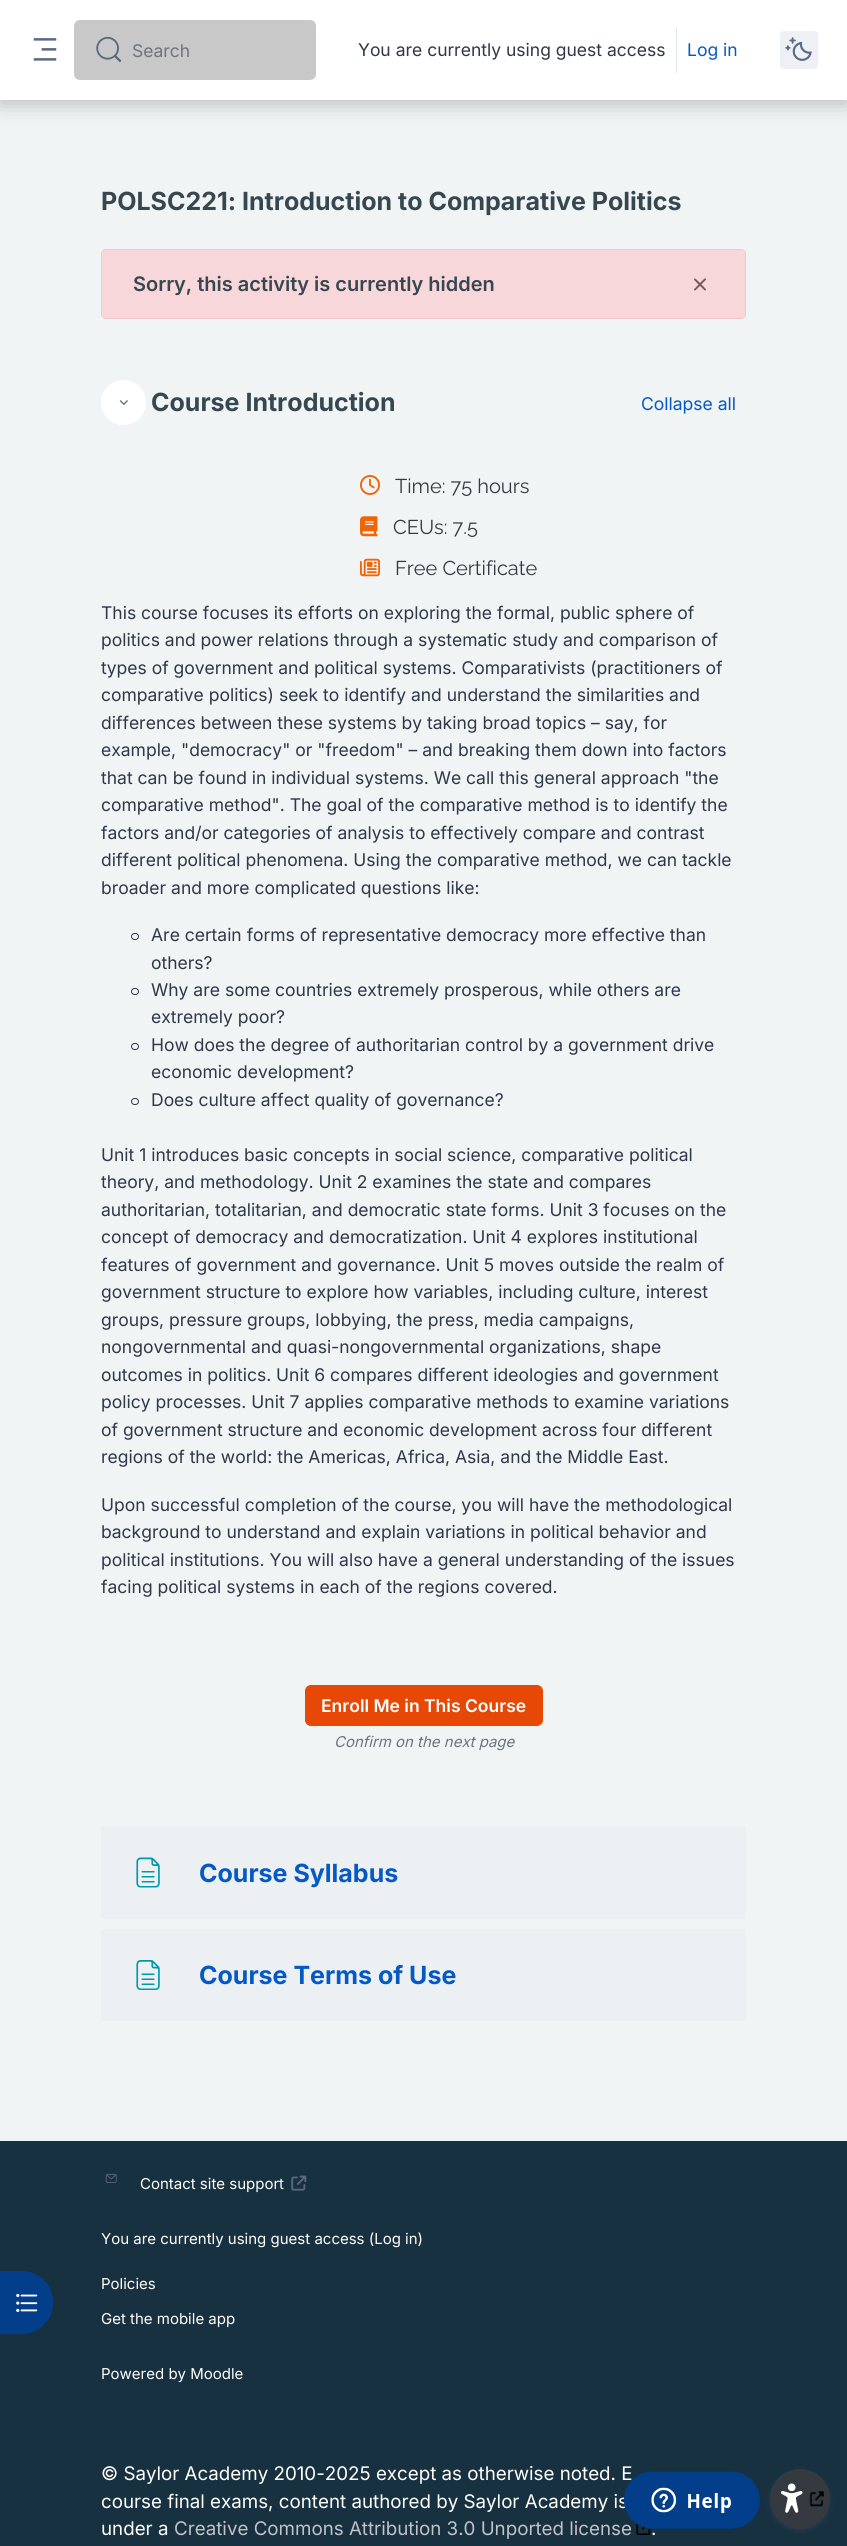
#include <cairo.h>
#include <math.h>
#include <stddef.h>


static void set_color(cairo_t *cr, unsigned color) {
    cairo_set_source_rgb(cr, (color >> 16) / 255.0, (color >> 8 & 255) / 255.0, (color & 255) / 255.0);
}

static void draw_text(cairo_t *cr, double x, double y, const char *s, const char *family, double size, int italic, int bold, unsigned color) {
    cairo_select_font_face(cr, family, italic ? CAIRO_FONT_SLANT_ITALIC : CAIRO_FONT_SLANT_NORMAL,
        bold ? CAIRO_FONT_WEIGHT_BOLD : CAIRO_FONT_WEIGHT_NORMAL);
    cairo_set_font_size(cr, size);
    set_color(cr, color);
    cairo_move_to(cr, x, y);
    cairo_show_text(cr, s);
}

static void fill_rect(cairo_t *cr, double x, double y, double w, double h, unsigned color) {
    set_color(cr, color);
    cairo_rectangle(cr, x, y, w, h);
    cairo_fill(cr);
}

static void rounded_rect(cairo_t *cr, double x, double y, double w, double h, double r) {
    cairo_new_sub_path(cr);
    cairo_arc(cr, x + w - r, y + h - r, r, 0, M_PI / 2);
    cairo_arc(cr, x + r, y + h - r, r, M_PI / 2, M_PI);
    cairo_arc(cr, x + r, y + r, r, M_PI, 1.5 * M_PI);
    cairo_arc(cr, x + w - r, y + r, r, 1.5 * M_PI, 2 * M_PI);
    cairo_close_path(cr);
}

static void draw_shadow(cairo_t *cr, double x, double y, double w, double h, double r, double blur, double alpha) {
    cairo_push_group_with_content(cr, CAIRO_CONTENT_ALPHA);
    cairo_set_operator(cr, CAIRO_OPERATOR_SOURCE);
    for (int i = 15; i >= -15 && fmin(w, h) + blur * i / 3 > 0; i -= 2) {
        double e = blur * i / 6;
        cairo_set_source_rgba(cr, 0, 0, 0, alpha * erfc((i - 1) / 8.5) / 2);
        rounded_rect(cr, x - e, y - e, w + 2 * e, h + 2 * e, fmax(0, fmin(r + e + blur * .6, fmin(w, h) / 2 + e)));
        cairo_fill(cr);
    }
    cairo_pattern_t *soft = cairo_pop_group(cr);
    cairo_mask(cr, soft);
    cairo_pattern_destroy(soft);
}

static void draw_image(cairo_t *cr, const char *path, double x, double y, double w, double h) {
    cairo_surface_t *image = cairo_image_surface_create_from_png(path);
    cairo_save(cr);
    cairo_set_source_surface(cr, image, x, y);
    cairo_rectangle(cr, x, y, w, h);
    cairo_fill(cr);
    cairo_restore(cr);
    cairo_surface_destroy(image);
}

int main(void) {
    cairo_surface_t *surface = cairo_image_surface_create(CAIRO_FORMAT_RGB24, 847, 2546);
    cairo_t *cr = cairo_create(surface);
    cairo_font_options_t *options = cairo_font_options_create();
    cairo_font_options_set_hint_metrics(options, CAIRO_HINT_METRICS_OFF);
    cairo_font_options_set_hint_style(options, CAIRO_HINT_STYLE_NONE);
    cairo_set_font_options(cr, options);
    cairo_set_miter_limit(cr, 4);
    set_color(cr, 0xF1F4F5);
    cairo_paint(cr);
    set_color(cr, 0x000000);
    draw_shadow(cr, 0, 3, 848, 100, 0, 11, 0.25);
    fill_rect(cr, 0, 0, 847, 100, 0xFFFFFF);
    draw_image(cr, "assets/img1.png", 33, 38, 24, 23);
    set_color(cr, 0xC8C8C8);
    rounded_rect(cr, 74, 20, 242, 60, 6);
    cairo_fill(cr);
    draw_image(cr, "assets/img2.png", 96, 36, 26, 26);
    draw_text(cr, 132, 57, "Search", "Inter", 17.5, 0, 0, 0x6C757D);
    draw_text(cr, 358, 56, "You are currently using guest access", "Inter", 17.5, 0, 0, 0x2F3847);
    fill_rect(cr, 676, 28, 1, 45, 0xE2E7F0);
    draw_text(cr, 687, 56, "Log in", "Inter", 17.5, 0, 0, 0x0459C4);
    set_color(cr, 0xEDF1F6);
    rounded_rect(cr, 780, 31, 38, 38, 4);
    cairo_fill(cr);
    draw_image(cr, "assets/img3.png", 785, 37, 27, 24);
    draw_text(cr, 101, 210, "POLSC221: Introduction to Comparative Politics", "Inter", 25, 0, 1, 0x37474F);
    set_color(cr, 0xF8D7DA);
    rounded_rect(cr, 101.5, 249.5, 644, 69, 4.5);
    cairo_fill_preserve(cr);
    set_color(cr, 0xF5C6CB);
    cairo_set_line_width(cr, 1);
    cairo_stroke(cr);
    draw_text(cr, 133, 291, "Sorry, this activity is currently hidden", "Inter SemiBold", 20, 0, 0, 0x37474F);
    draw_image(cr, "assets/img4.png", 694, 278, 12, 13);
    set_color(cr, 0xFFFFFF);
    cairo_arc(cr, 123.5, 402.5, 22.5, 0, 2 * M_PI);
    cairo_fill(cr);
    draw_image(cr, "assets/img5.png", 119, 400, 9, 5);
    draw_text(cr, 151, 411, "Course Introduction", "Inter", 25, 0, 1, 0x37474F);
    draw_text(cr, 641, 410, "Collapse all", "Inter", 17.5, 0, 0, 0x0459C4);
    draw_image(cr, "assets/img6.png", 360, 475, 20, 20);
    draw_text(cr, 395, 493, "Time: 75 hours", "Raleway", 20, 0, 0, 0x343A40);
    draw_image(cr, "assets/img7.png", 360, 516, 18, 21);
    draw_text(cr, 393, 534, "CEUs: 7.5", "Raleway", 20, 0, 0, 0x343A40);
    draw_image(cr, "assets/img8.png", 360, 558, 20, 19);
    draw_text(cr, 395, 575, "Free Certificate", "Raleway", 20, 0, 0, 0x343A40);
    draw_text(cr, 101, 619, "This course focuses its efforts on exploring the formal, public sphere of", "Inter", 17.5, 0, 0, 0x2F3847);
    draw_text(cr, 101, 646, "politics and power relations through a systematic study and comparison of", "Inter", 17.5, 0, 0, 0x2F3847);
    draw_text(cr, 101, 674, "types of government and political systems. Comparativists (practitioners of", "Inter", 17.5, 0, 0, 0x2F3847);
    draw_text(cr, 101, 701, "comparative politics) seek to identify and understand the similarities and", "Inter", 17.5, 0, 0, 0x2F3847);
    draw_text(cr, 101, 729, "differences between these systems by taking broad topics – say, for", "Inter", 17.5, 0, 0, 0x2F3847);
    draw_text(cr, 101, 756, "example, \"democracy\" or \"freedom\" – and breaking them down into factors", "Inter", 17.5, 0, 0, 0x2F3847);
    draw_text(cr, 101, 784, "that can be found in individual systems. We call this general approach \"the", "Inter", 17.5, 0, 0, 0x2F3847);
    draw_text(cr, 101, 811, "comparative method\". The goal of the comparative method is to identify the", "Inter", 17.5, 0, 0, 0x2F3847);
    draw_text(cr, 101, 839, "factors and/or categories of analysis to effectively compare and contrast", "Inter", 17.5, 0, 0, 0x2F3847);
    draw_text(cr, 101, 866, "different political phenomena. Using the comparative method, we can tackle", "Inter", 17.5, 0, 0, 0x2F3847);
    draw_text(cr, 101, 894, "broader and more complicated questions like:", "Inter", 17.5, 0, 0, 0x2F3847);
    rounded_rect(cr, 131.5, 933.5, 7, 6, 3);
    cairo_stroke(cr);
    draw_text(cr, 151, 941, "Are certain forms of representative democracy more effective than", "Inter", 17.5, 0, 0, 0x2F3847);
    draw_text(cr, 151, 969, "others?", "Inter", 17.5, 0, 0, 0x2F3847);
    rounded_rect(cr, 131.5, 988.5, 7, 6, 3);
    cairo_stroke(cr);
    draw_text(cr, 151, 996, "Why are some countries extremely prosperous, while others are", "Inter", 17.5, 0, 0, 0x2F3847);
    draw_text(cr, 151, 1023, "extremely poor?", "Inter", 17.5, 0, 0, 0x2F3847);
    rounded_rect(cr, 131.5, 1043.5, 7, 6, 3);
    cairo_stroke(cr);
    draw_text(cr, 151, 1051, "How does the degree of authoritarian control by a government drive", "Inter", 17.5, 0, 0, 0x2F3847);
    draw_text(cr, 151, 1078, "economic development?", "Inter", 17.5, 0, 0, 0x2F3847);
    rounded_rect(cr, 131.5, 1098.5, 7, 6, 3);
    cairo_stroke(cr);
    draw_text(cr, 151, 1106, "Does culture affect quality of governance?", "Inter", 17.5, 0, 0, 0x2F3847);
    draw_text(cr, 101, 1161, "Unit 1 introduces basic concepts in social science, comparative political", "Inter", 17.5, 0, 0, 0x2F3847);
    draw_text(cr, 101, 1188, "theory, and methodology. Unit 2 examines the state and compares", "Inter", 17.5, 0, 0, 0x2F3847);
    draw_text(cr, 101, 1216, "authoritarian, totalitarian, and democratic state forms. Unit 3 focuses on the", "Inter", 17.5, 0, 0, 0x2F3847);
    draw_text(cr, 101, 1243, "concept of democracy and democratization. Unit 4 explores institutional", "Inter", 17.5, 0, 0, 0x2F3847);
    draw_text(cr, 101, 1271, "features of government and governance. Unit 5 moves outside the realm of", "Inter", 17.5, 0, 0, 0x2F3847);
    draw_text(cr, 101, 1298, "government structure to explore how variables, including culture, interest", "Inter", 17.5, 0, 0, 0x2F3847);
    draw_text(cr, 101, 1326, "groups, pressure groups, lobbying, the press, media campaigns,", "Inter", 17.5, 0, 0, 0x2F3847);
    draw_text(cr, 101, 1353, "nongovernmental and quasi-nongovernmental organizations, shape", "Inter", 17.5, 0, 0, 0x2F3847);
    draw_text(cr, 101, 1381, "outcomes in politics. Unit 6 compares different ideologies and government", "Inter", 17.5, 0, 0, 0x2F3847);
    draw_text(cr, 101, 1408, "policy processes. Unit 7 applies comparative methods to examine variations", "Inter", 17.5, 0, 0, 0x2F3847);
    draw_text(cr, 101, 1436, "of government structure and economic development across four different", "Inter", 17.5, 0, 0, 0x2F3847);
    draw_text(cr, 101, 1463, "regions of the world: the Americas, Africa, Asia, and the Middle East.", "Inter", 17.5, 0, 0, 0x2F3847);
    draw_text(cr, 101, 1511, "Upon successful completion of the course, you will have the methodological", "Inter", 17.5, 0, 0, 0x2F3847);
    draw_text(cr, 101, 1538, "background to understand and explain variations in political behavior and", "Inter", 17.5, 0, 0, 0x2F3847);
    draw_text(cr, 101, 1566, "political institutions. You will also have a general understanding of the issues", "Inter", 17.5, 0, 0, 0x2F3847);
    draw_text(cr, 101, 1593, "facing political systems in each of the regions covered.", "Inter", 17.5, 0, 0, 0x2F3847);
    set_color(cr, 0xE84806);
    rounded_rect(cr, 305.5, 1685.5, 237, 40, 5.5);
    cairo_fill_preserve(cr);
    cairo_stroke(cr);
    draw_text(cr, 321, 1712, "Enroll Me in This Course", "Inter SemiBold", 17.5, 0, 0, 0xFFFFFF);
    draw_text(cr, 334, 1747, "Confirm on the next page", "Inter", 15, 1, 0, 0x6C757D);
    fill_rect(cr, 101, 1826, 645, 93, 0xECF0F3);
    draw_image(cr, "assets/img9.png", 136, 1857, 24, 31);
    draw_text(cr, 199, 1882, "Course Syllabus", "Inter", 25, 0, 1, 0x0459C4);
    fill_rect(cr, 101, 1929, 645, 92, 0xECF0F3);
    draw_image(cr, "assets/img10.png", 136, 1960, 24, 30);
    draw_text(cr, 199, 1984, "Course Terms of Use", "Inter", 25, 0, 1, 0x0459C4);
    fill_rect(cr, 0, 2141, 847, 405, 0x173140);
    set_color(cr, 0x023E8A);
    cairo_new_path(cr);
    cairo_move_to(cr, 0.5, 2271.5);
    cairo_line_to(cr, 22, 2271.5);
    cairo_curve_to(cr, 39, 2271.5, 52.5, 2285, 52.5, 2302);
    cairo_line_to(cr, 52.5, 2303);
    cairo_curve_to(cr, 52.5, 2320, 39, 2333.5, 22, 2333.5);
    cairo_line_to(cr, 0.5, 2333.5);
    cairo_close_path(cr);
    cairo_fill_preserve(cr);
    cairo_stroke(cr);
    draw_image(cr, "assets/img11.png", 16, 2293, 22, 19);
    draw_image(cr, "assets/img12.png", 105, 2173, 12, 10);
    draw_text(cr, 140, 2189, "Contact site support", "Inter", 15, 0, 0, 0xFFFFFF);
    draw_image(cr, "assets/img13.png", 291, 2175, 16, 16);
    draw_text(cr, 101, 2244, "You are currently using guest access (Log in)", "Inter", 15, 0, 0, 0xFFFFFF);
    draw_text(cr, 101, 2289, "Policies", "Inter", 15, 0, 0, 0xFFFFFF);
    draw_text(cr, 101, 2324, "Get the mobile app", "Inter", 15, 0, 0, 0xFFFFFF);
    draw_text(cr, 101, 2379, "Powered by Moodle", "Inter", 15, 0, 0, 0xFFFFFF);
    draw_text(cr, 101, 2480, "© Saylor Academy 2010-2025 except as otherwise noted. E", "Inter", 18.75, 0, 0, 0xFFFFFF);
    draw_text(cr, 101, 2508, "course final exams, content authored by Saylor Academy is", "Inter", 18.75, 0, 0, 0xFFFFFF);
    draw_text(cr, 101, 2535, "under a", "Inter", 18.75, 0, 0, 0xFFFFFF);
    draw_text(cr, 174, 2535, "Creative Commons Attribution 3.0 Unported license", "Inter", 18.75, 0, 0, 0xC1C3C8);
    draw_image(cr, "assets/img14.png", 636, 2523, 15, 12);
    draw_text(cr, 651, 2535, ".", "Inter", 18.75, 0, 0, 0xFFFFFF);
    set_color(cr, 0x5D6494);
    draw_shadow(cr, 770, 2471, 60, 60, 30, 2.5, 0.2);
    set_color(cr, 0x343A40);
    cairo_arc(cr, 800, 2499, 30, 0, 2 * M_PI);
    cairo_fill(cr);
    draw_image(cr, "assets/img15.png", 780, 2483, 23, 30);
    draw_image(cr, "assets/img16.png", 809, 2491, 15, 16);
    draw_image(cr, "assets/img17.png", 624, 2471, 136, 58);
    cairo_surface_write_to_png(surface, "output.png");
    cairo_font_options_destroy(options);
    cairo_destroy(cr);
    cairo_surface_destroy(surface);
    return 0;
}
